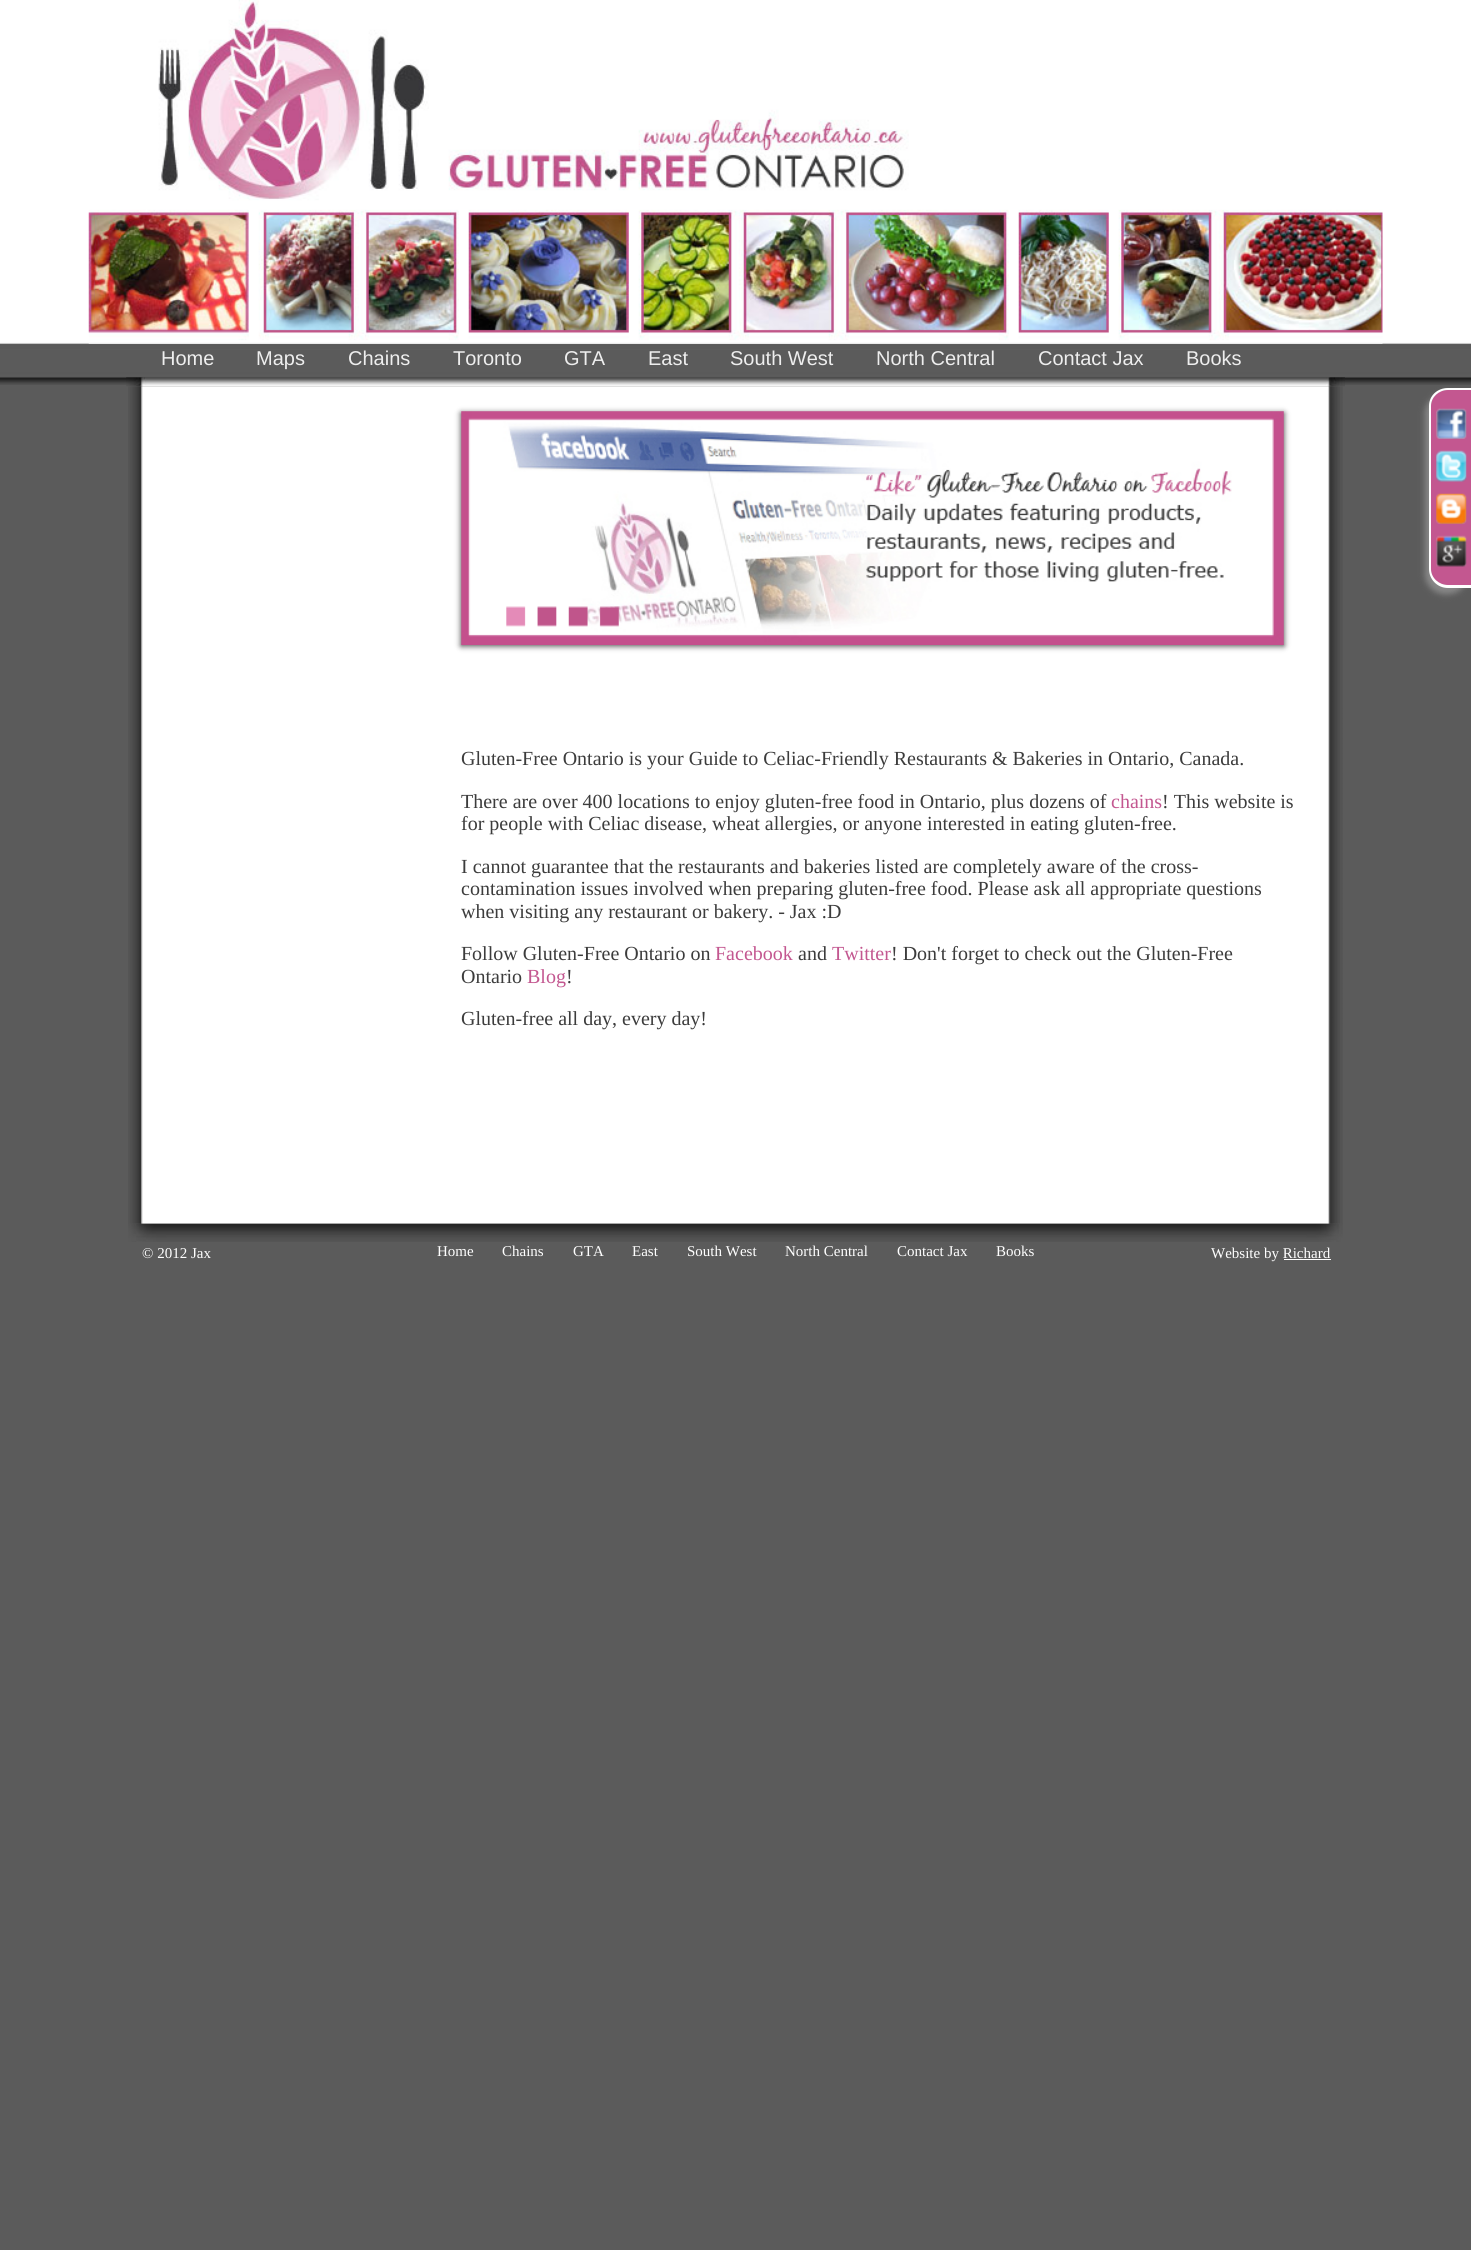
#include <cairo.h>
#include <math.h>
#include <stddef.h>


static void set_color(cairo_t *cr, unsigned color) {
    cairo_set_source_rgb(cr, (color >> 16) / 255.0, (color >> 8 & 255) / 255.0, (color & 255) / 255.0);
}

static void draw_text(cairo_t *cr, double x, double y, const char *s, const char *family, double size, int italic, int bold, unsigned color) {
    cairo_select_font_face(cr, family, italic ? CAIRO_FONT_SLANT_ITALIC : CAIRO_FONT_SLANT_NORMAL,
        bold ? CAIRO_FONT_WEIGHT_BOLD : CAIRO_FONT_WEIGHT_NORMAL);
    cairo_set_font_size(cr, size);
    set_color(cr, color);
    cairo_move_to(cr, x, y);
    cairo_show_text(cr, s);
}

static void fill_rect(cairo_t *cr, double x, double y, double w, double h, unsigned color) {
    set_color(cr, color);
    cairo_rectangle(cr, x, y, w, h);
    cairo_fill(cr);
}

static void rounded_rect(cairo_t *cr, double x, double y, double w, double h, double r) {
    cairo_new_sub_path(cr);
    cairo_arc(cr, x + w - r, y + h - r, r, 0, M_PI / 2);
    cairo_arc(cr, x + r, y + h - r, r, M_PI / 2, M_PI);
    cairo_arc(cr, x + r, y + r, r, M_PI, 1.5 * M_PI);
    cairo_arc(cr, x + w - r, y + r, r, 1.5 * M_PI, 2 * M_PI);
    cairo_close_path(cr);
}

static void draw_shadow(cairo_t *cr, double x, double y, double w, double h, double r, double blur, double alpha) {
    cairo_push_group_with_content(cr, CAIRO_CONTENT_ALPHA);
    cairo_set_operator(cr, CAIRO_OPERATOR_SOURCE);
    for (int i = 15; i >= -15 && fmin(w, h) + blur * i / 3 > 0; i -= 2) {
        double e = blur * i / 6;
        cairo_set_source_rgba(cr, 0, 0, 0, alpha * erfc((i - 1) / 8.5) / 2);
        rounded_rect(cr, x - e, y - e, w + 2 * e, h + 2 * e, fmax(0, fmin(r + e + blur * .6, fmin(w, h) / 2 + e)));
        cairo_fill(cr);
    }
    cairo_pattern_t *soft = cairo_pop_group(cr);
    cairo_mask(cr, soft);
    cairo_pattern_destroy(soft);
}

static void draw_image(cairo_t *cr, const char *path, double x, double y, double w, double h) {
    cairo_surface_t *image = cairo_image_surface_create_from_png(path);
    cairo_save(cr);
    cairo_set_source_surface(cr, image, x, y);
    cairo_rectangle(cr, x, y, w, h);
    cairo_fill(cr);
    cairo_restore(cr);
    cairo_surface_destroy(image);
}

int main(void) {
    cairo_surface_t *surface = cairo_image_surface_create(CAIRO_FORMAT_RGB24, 1471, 2250);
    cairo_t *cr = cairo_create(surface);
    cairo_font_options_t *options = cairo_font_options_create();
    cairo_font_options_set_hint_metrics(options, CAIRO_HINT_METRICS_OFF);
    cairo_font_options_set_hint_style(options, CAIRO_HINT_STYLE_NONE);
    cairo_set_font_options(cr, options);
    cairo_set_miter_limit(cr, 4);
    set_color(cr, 0x5B5B5B);
    cairo_paint(cr);
    draw_image(cr, "assets/img1.png", 0, 0, 1471, 385);
    draw_image(cr, "assets/img2.png", 88, 0, 1295, 344);
    draw_image(cr, "assets/img3.png", 142, 377, 1188, 1);
    draw_text(cr, 161, 365, "Home", "Liberation Sans", 20, 0, 0, 0xEEEEEE);
    draw_text(cr, 256, 365, "Maps", "Liberation Sans", 20, 0, 0, 0xEEEEEE);
    draw_text(cr, 348, 365, "Chains", "Liberation Sans", 20, 0, 0, 0xEEEEEE);
    draw_text(cr, 453, 365, "Toronto", "Liberation Sans", 20, 0, 0, 0xEEEEEE);
    draw_text(cr, 564, 365, "GTA", "Liberation Sans", 20, 0, 0, 0xEEEEEE);
    draw_text(cr, 648, 365, "East", "Liberation Sans", 20, 0, 0, 0xEEEEEE);
    draw_text(cr, 730, 365, "South West", "Liberation Sans", 20, 0, 0, 0xEEEEEE);
    draw_text(cr, 876, 365, "North Central", "Liberation Sans", 20, 0, 0, 0xEEEEEE);
    draw_text(cr, 1038, 365, "Contact Jax", "Liberation Sans", 20, 0, 0, 0xEEEEEE);
    draw_text(cr, 1186, 365, "Books", "Liberation Sans", 20, 0, 0, 0xEEEEEE);
    draw_image(cr, "assets/img4.png", 126, 377, 1219, 10);
    draw_image(cr, "assets/img5.png", 128, 386, 1215, 838);
    set_color(cr, 0x4A4A4A);
    draw_shadow(cr, 461, 413, 823, 233, 0, 3, 1);
    draw_image(cr, "assets/img6.png", 461, 411, 823, 234);
    draw_image(cr, "assets/img7.png", 506, 606, 20, 21);
    draw_image(cr, "assets/img8.png", 537, 606, 20, 21);
    draw_image(cr, "assets/img9.png", 568, 606, 20, 21);
    draw_image(cr, "assets/img10.png", 599, 606, 20, 21);
    draw_text(cr, 461, 765, "Gluten-Free Ontario is your Guide to Celiac-Friendly Restaurants & Bakeries in Ontario, Canada.", "Liberation Serif", 20, 0, 0, 0x3C3C3C);
    draw_text(cr, 461, 808, "There are over 400 locations to enjoy gluten-free food in Ontario, plus dozens of", "Liberation Serif", 20, 0, 0, 0x3C3C3C);
    draw_text(cr, 1111, 808, "chains", "Liberation Serif", 20, 0, 0, 0xC35790);
    draw_text(cr, 1162, 808, "! This website is", "Liberation Serif", 20, 0, 0, 0x3C3C3C);
    draw_text(cr, 461, 830, "for people with Celiac disease, wheat allergies, or anyone interested in eating gluten-free.", "Liberation Serif", 20, 0, 0, 0x3C3C3C);
    draw_text(cr, 461, 873, "I cannot guarantee that the restaurants and bakeries listed are completely aware of the cross-", "Liberation Serif", 20, 0, 0, 0x3C3C3C);
    draw_text(cr, 461, 895, "contamination issues involved when preparing gluten-free food. Please ask all appropriate questions", "Liberation Serif", 20, 0, 0, 0x3C3C3C);
    draw_text(cr, 461, 918, "when visiting any restaurant or bakery. - Jax :D", "Liberation Serif", 20, 0, 0, 0x3C3C3C);
    draw_text(cr, 461, 960, "Follow Gluten-Free Ontario on", "Liberation Serif", 20, 0, 0, 0x3C3C3C);
    draw_text(cr, 715, 960, "Facebook", "Liberation Serif", 20, 0, 0, 0xC35790);
    draw_text(cr, 798, 960, "and", "Liberation Serif", 20, 0, 0, 0x3C3C3C);
    draw_text(cr, 832, 960, "Twitter", "Liberation Serif", 20, 0, 0, 0xC35790);
    draw_text(cr, 891, 960, "! Don't forget to check out the Gluten-Free", "Liberation Serif", 20, 0, 0, 0x3C3C3C);
    draw_text(cr, 461, 983, "Ontario", "Liberation Serif", 20, 0, 0, 0x3C3C3C);
    draw_text(cr, 527, 983, "Blog", "Liberation Serif", 20, 0, 0, 0xC35790);
    draw_text(cr, 566, 983, "!", "Liberation Serif", 20, 0, 0, 0x3C3C3C);
    draw_text(cr, 461, 1025, "Gluten-free all day, every day!", "Liberation Serif", 20, 0, 0, 0x3C3C3C);
    draw_image(cr, "assets/img11.png", 128, 1223, 1215, 19);
    draw_text(cr, 142, 1258, "© 2012 Jax", "Liberation Serif", 15, 0, 0, 0xFFFFFF);
    draw_text(cr, 437, 1256, "Home", "Liberation Serif", 15, 0, 0, 0xFFFFFF);
    draw_text(cr, 502, 1256, "Chains", "Liberation Serif", 15, 0, 0, 0xFFFFFF);
    draw_text(cr, 573, 1256, "GTA", "Liberation Serif", 15, 0, 0, 0xFFFFFF);
    draw_text(cr, 632, 1256, "East", "Liberation Serif", 15, 0, 0, 0xFFFFFF);
    draw_text(cr, 687, 1256, "South West", "Liberation Serif", 15, 0, 0, 0xFFFFFF);
    draw_text(cr, 785, 1256, "North Central", "Liberation Serif", 15, 0, 0, 0xFFFFFF);
    draw_text(cr, 897, 1256, "Contact Jax", "Liberation Serif", 15, 0, 0, 0xFFFFFF);
    draw_text(cr, 996, 1256, "Books", "Liberation Serif", 15, 0, 0, 0xFFFFFF);
    draw_text(cr, 1211, 1258, "Website by Richard", "Liberation Serif", 15, 0, 0, 0xFFFFFF);
    fill_rect(cr, 1284, 1259, 47, 1, 0xFFFFFF);
    set_color(cr, 0x888888);
    draw_shadow(cr, 1425, 394, 43, 200, 19, 3, 1);
    set_color(cr, 0xC35790);
    cairo_new_path(cr);
    cairo_move_to(cr, 1447, 390);
    cairo_line_to(cr, 1471, 390);
    cairo_line_to(cr, 1471, 585);
    cairo_line_to(cr, 1447, 585);
    cairo_curve_to(cr, 1438, 585, 1431, 578, 1431, 569);
    cairo_line_to(cr, 1431, 406);
    cairo_curve_to(cr, 1431, 397, 1438, 390, 1447, 390);
    cairo_close_path(cr);
    cairo_fill(cr);
    set_color(cr, 0xFFFFFF);
    cairo_set_fill_rule(cr, CAIRO_FILL_RULE_EVEN_ODD);
    cairo_new_path(cr);
    cairo_move_to(cr, 1448, 388);
    cairo_line_to(cr, 1471, 388);
    cairo_line_to(cr, 1471, 588);
    cairo_line_to(cr, 1448, 588);
    cairo_curve_to(cr, 1437, 588, 1429, 579, 1429, 569);
    cairo_line_to(cr, 1429, 406);
    cairo_curve_to(cr, 1429, 396, 1437, 388, 1448, 388);
    cairo_close_path(cr);
    cairo_move_to(cr, 1448, 390);
    cairo_line_to(cr, 1471, 390);
    cairo_line_to(cr, 1471, 585);
    cairo_line_to(cr, 1448, 585);
    cairo_curve_to(cr, 1439, 585, 1431, 578, 1431, 569);
    cairo_line_to(cr, 1431, 406);
    cairo_curve_to(cr, 1431, 397, 1439, 390, 1448, 390);
    cairo_close_path(cr);
    cairo_fill(cr);
    draw_image(cr, "assets/img12.png", 1436, 408, 31, 31);
    draw_image(cr, "assets/img13.png", 1436, 450, 31, 32);
    draw_image(cr, "assets/img14.png", 1436, 493, 31, 31);
    draw_image(cr, "assets/img15.png", 1436, 535, 31, 32);
    cairo_surface_write_to_png(surface, "output.png");
    cairo_font_options_destroy(options);
    cairo_destroy(cr);
    cairo_surface_destroy(surface);
    return 0;
}
